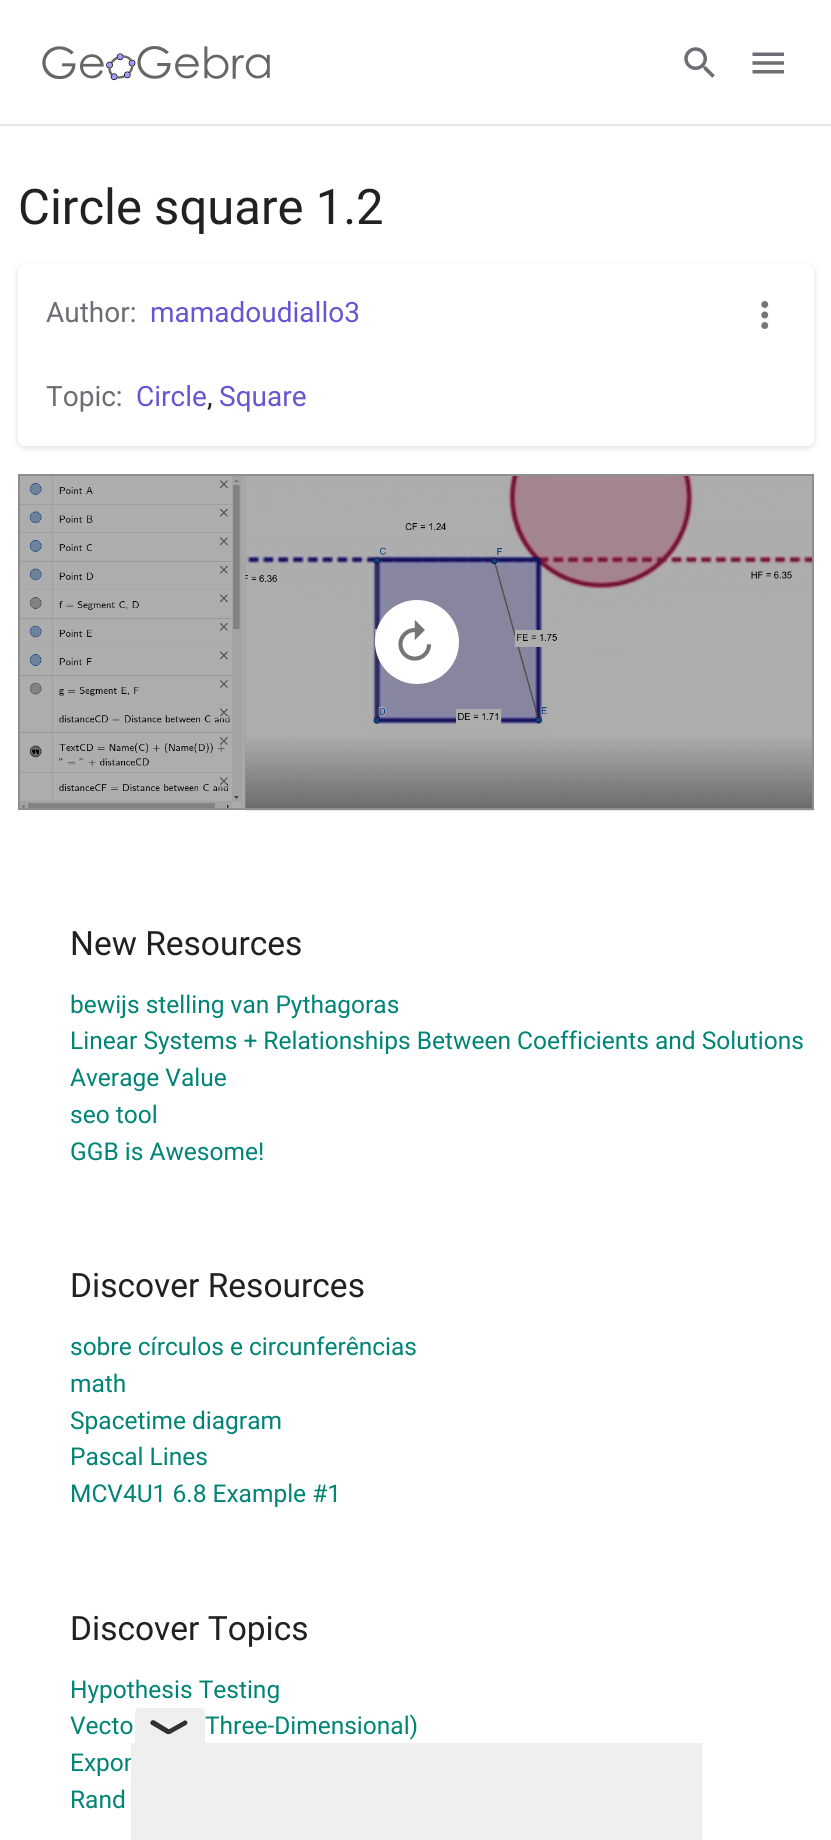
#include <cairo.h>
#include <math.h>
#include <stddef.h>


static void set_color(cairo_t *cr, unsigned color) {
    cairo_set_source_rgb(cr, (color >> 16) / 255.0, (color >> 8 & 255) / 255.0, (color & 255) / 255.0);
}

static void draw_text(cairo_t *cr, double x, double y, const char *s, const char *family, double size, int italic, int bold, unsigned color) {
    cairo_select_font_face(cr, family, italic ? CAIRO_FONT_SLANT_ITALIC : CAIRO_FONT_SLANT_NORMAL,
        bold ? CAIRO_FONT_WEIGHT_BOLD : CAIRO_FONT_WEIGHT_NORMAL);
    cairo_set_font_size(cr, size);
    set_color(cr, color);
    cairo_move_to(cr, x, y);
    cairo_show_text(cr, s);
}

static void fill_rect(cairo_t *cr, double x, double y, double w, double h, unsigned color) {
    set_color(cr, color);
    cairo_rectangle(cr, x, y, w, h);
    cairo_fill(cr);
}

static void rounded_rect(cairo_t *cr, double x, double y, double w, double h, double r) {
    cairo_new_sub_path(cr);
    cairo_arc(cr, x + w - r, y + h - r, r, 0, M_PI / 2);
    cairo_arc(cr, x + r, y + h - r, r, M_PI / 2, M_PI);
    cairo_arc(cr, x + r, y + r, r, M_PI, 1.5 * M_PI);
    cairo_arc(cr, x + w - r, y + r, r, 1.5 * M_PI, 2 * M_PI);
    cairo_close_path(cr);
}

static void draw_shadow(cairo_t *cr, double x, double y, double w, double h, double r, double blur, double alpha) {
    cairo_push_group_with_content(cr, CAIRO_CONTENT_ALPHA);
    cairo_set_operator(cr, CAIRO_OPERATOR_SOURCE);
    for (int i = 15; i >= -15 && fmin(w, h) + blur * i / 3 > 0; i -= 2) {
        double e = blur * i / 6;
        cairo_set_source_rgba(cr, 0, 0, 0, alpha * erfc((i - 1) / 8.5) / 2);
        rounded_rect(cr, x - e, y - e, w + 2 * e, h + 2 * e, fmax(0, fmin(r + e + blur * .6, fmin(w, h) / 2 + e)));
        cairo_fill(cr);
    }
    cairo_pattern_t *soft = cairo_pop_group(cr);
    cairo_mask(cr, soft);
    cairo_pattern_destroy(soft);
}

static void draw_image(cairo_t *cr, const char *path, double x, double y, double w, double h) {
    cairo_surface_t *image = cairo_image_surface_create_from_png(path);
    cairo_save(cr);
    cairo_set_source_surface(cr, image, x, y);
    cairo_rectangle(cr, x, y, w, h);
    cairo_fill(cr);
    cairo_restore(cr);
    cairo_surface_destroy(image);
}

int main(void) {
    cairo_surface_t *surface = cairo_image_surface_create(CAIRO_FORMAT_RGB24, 831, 1840);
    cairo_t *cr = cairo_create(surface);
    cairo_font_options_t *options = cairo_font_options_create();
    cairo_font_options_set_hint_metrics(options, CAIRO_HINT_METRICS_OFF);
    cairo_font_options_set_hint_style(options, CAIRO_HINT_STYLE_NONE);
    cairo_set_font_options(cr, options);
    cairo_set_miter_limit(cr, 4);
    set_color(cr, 0xFFFFFF);
    cairo_paint(cr);
    fill_rect(cr, 0, 124, 831, 2, 0xE6E6EB);
    draw_image(cr, "assets/img1.png", 42, 46, 228, 35);
    draw_image(cr, "assets/img2.png", 684, 47, 31, 31);
    draw_image(cr, "assets/img3.png", 752, 52, 32, 22);
    draw_text(cr, 18, 224, "Circle square 1.2", "Roboto", 49, 0, 0, 0x212121);
    set_color(cr, 0x1C1C1F);
    draw_shadow(cr, 18, 266, 796, 182, 7, 3.5, 0.14);
    set_color(cr, 0xFFFFFF);
    rounded_rect(cr, 18, 264, 796, 182, 7);
    cairo_fill(cr);
    draw_text(cr, 46, 322, "Author:", "Roboto", 28, 0, 0, 0x6E6D73);
    draw_text(cr, 150, 322, "mamadoudiallo3", "Roboto", 28, 0, 0, 0x6557D2);
    draw_text(cr, 46, 406, "Topic:", "Roboto", 28, 0, 0, 0x6E6D73);
    draw_text(cr, 136, 406, "Circle", "Roboto", 28, 0, 0, 0x6557D2);
    draw_text(cr, 207, 406, ",", "Roboto", 28, 0, 0, 0x212121);
    draw_text(cr, 219, 406, "Square", "Roboto", 28, 0, 0, 0x6557D2);
    draw_image(cr, "assets/img4.png", 761, 301, 8, 28);
    draw_image(cr, "assets/img5.png", 19, 476, 795, 335);
    cairo_rectangle(cr, 19, 475, 794, 334);
    set_color(cr, 0x8F8F8F);
    cairo_stroke(cr);
    set_color(cr, 0xFFFFFF);
    cairo_arc(cr, 417, 642, 42, 0, 2 * M_PI);
    cairo_fill(cr);
    draw_image(cr, "assets/img6.png", 398, 620, 34, 41);
    draw_text(cr, 70, 955, "New Resources", "Roboto", 33.5, 0, 0, 0x212121);
    draw_text(cr, 70, 1013, "bewijs stelling van Pythagoras", "Roboto", 24.5, 0, 0, 0x008475);
    draw_text(cr, 70, 1049, "Linear Systems + Relationships Between Coefficients and Solutions", "Roboto", 24.5, 0, 0, 0x008475);
    draw_text(cr, 70, 1086, "Average Value", "Roboto", 24.5, 0, 0, 0x008475);
    draw_text(cr, 70, 1123, "seo tool", "Roboto", 24.5, 0, 0, 0x008475);
    draw_text(cr, 70, 1160, "GGB is Awesome!", "Roboto", 24.5, 0, 0, 0x008475);
    draw_text(cr, 70, 1297, "Discover Resources", "Roboto", 33.5, 0, 0, 0x212121);
    draw_text(cr, 70, 1355, "sobre círculos e circunferências", "Roboto", 24.5, 0, 0, 0x008475);
    draw_text(cr, 70, 1392, "math", "Roboto", 24.5, 0, 0, 0x008475);
    draw_text(cr, 70, 1429, "Spacetime diagram", "Roboto", 24.5, 0, 0, 0x008475);
    draw_text(cr, 70, 1465, "Pascal Lines", "Roboto", 24.5, 0, 0, 0x008475);
    draw_text(cr, 70, 1502, "MCV4U1 6.8 Example #1", "Roboto", 24.5, 0, 0, 0x008475);
    draw_text(cr, 70, 1640, "Discover Topics", "Roboto", 33.5, 0, 0, 0x212121);
    draw_text(cr, 70, 1698, "Hypothesis Testing", "Roboto", 24.5, 0, 0, 0x008475);
    draw_text(cr, 70, 1734, "Vecto", "Roboto", 24.5, 0, 0, 0x008475);
    draw_text(cr, 205, 1734, "Three-Dimensional)", "Roboto", 24.5, 0, 0, 0x008475);
    draw_text(cr, 70, 1771, "Expon", "Roboto", 24.5, 0, 0, 0x008475);
    draw_text(cr, 70, 1808, "Rand", "Roboto", 24.5, 0, 0, 0x008475);
    set_color(cr, 0xEFEFEF);
    cairo_new_path(cr);
    cairo_move_to(cr, 139, 1708);
    cairo_line_to(cr, 201, 1708);
    cairo_curve_to(cr, 203, 1708, 205, 1710, 205, 1712);
    cairo_line_to(cr, 205, 1743);
    cairo_line_to(cr, 135, 1743);
    cairo_line_to(cr, 135, 1712);
    cairo_curve_to(cr, 135, 1710, 137, 1708, 139, 1708);
    cairo_close_path(cr);
    cairo_fill(cr);
    set_color(cr, 0x313131);
    cairo_new_path(cr);
    cairo_move_to(cr, 154.5, 1720.5);
    cairo_line_to(cr, 170, 1730);
    cairo_curve_to(cr, 172, 1732.5, 169, 1735, 167, 1734);
    cairo_line_to(cr, 151, 1724.5);
    cairo_curve_to(cr, 149, 1722, 152, 1719, 154.5, 1720.5);
    cairo_close_path(cr);
    cairo_fill(cr);
    cairo_new_path(cr);
    cairo_move_to(cr, 168.5, 1729.5);
    cairo_line_to(cr, 184.5, 1720.5);
    cairo_curve_to(cr, 187.5, 1720, 188.5, 1723.5, 186, 1725);
    cairo_line_to(cr, 170, 1734);
    cairo_curve_to(cr, 167, 1734.5, 166, 1730.5, 168.5, 1729.5);
    cairo_close_path(cr);
    cairo_fill(cr);
    fill_rect(cr, 131, 1743, 571, 97, 0xEFEFEF);
    cairo_surface_write_to_png(surface, "output.png");
    cairo_font_options_destroy(options);
    cairo_destroy(cr);
    cairo_surface_destroy(surface);
    return 0;
}
